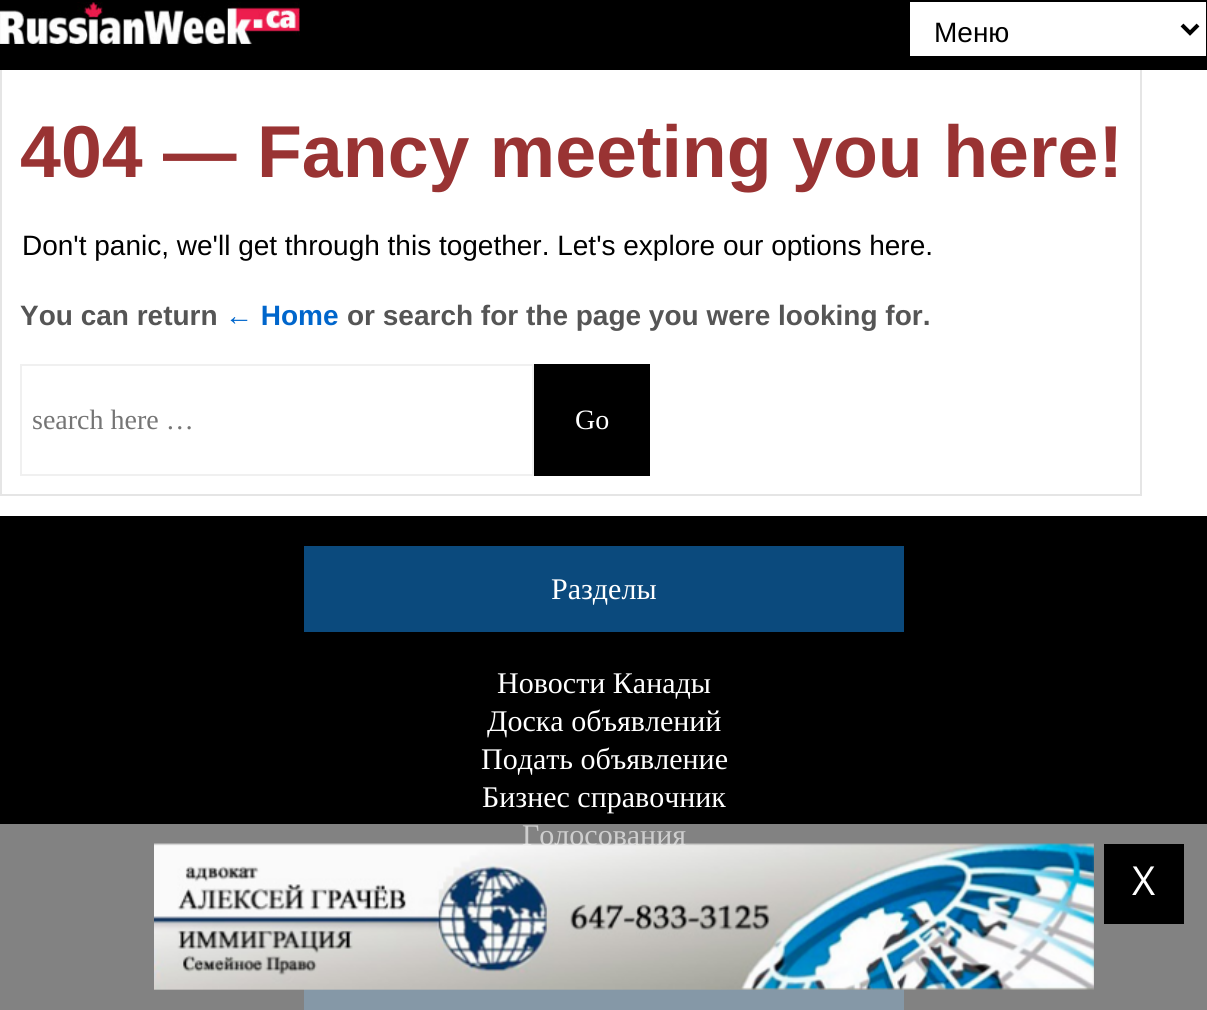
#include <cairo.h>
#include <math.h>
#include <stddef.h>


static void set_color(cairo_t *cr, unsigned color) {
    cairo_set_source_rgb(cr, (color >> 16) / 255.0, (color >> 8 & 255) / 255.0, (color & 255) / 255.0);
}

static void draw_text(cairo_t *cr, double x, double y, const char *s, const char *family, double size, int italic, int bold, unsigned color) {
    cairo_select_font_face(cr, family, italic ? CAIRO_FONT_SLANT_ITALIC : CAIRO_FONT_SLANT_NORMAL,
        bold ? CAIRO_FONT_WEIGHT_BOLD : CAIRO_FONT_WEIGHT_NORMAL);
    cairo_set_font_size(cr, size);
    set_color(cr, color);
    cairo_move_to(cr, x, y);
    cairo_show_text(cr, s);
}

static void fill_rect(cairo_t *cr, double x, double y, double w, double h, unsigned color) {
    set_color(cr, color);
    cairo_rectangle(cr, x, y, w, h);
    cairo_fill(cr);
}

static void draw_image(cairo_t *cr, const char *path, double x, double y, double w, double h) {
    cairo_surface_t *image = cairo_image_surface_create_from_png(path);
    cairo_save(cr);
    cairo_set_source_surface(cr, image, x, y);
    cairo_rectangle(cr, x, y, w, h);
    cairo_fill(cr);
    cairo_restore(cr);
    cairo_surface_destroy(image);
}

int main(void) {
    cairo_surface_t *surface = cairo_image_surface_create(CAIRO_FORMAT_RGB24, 1207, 1010);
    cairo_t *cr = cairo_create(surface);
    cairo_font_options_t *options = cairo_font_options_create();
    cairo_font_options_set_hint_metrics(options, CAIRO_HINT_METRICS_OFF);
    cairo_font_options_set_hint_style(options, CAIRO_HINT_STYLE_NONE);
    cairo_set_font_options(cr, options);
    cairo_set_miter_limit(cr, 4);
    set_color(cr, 0xFFFFFF);
    cairo_paint(cr);
    fill_rect(cr, 0, 0, 1207, 70, 0x000000);
    draw_image(cr, "assets/img1.png", 0, 2, 300, 42);
    fill_rect(cr, 910, 2, 296, 54, 0xFFFFFF);
    cairo_new_path(cr);
    cairo_move_to(cr, 1182, 25);
    cairo_line_to(cr, 1190, 33);
    cairo_line_to(cr, 1198, 25);
    set_color(cr, 0x000000);
    cairo_set_line_width(cr, 4);
    cairo_stroke(cr);
    draw_text(cr, 934, 42, "Меню", "Liberation Sans", 28, 0, 0, 0x000000);
    fill_rect(cr, 1140, 70, 2, 426, 0xE5E5E5);
    fill_rect(cr, 0, 494, 1142, 2, 0xE5E5E5);
    fill_rect(cr, 0, 70, 2, 426, 0xE5E5E5);
    draw_text(cr, 20, 177, "404 — Fancy meeting you here!", "Liberation Sans", 73.5, 0, 1, 0x993333);
    draw_text(cr, 22, 255, "Don't panic, we'll get through this together. Let's explore our options here.", "Liberation Sans", 28, 0, 0, 0x000000);
    draw_text(cr, 20, 325, "You can return", "Liberation Sans", 28, 0, 1, 0x555555);
    draw_text(cr, 225, 325, "← Home", "Liberation Sans", 28, 0, 1, 0x0066CC);
    draw_text(cr, 347, 325, "or search for the page you were looking for.", "Liberation Sans", 28, 0, 1, 0x555555);
    cairo_rectangle(cr, 21, 365, 512, 110);
    set_color(cr, 0xF0F0F0);
    cairo_set_line_width(cr, 2);
    cairo_stroke(cr);
    draw_text(cr, 32, 429, "search here …", "Liberation Serif", 28, 0, 0, 0x757575);
    fill_rect(cr, 534, 364, 116, 112, 0x000000);
    draw_text(cr, 575, 429, "Go", "Liberation Serif", 28, 0, 0, 0xFFFFFF);
    fill_rect(cr, 0, 516, 1207, 308, 0x000000);
    fill_rect(cr, 0, 824, 1207, 186, 0x828282);
    fill_rect(cr, 304, 546, 600, 86, 0x0B4A7D);
    draw_text(cr, 551, 599, "Разделы", "Liberation Serif", 30, 0, 0, 0xFFFFFF);
    draw_text(cr, 497, 693, "Новости Канады", "Liberation Serif", 30, 0, 0, 0xFFFFFF);
    draw_text(cr, 487, 731, "Доска объявлений", "Liberation Serif", 30, 0, 0, 0xFFFFFF);
    draw_text(cr, 481, 769, "Подать объявление", "Liberation Serif", 30, 0, 0, 0xFFFFFF);
    draw_text(cr, 482, 807, "Бизнес справочник", "Liberation Serif", 30, 0, 0, 0xFFFFFF);
    draw_text(cr, 522, 845, "Голосования", "Liberation Serif", 30, 0, 0, 0xCECECE);
    fill_rect(cr, 304, 989, 600, 21, 0x8598A7);
    draw_image(cr, "assets/img2.png", 154, 843, 940, 147);
    fill_rect(cr, 1104, 844, 80, 80, 0x000000);
    draw_text(cr, 1132, 895, "X", "Open Sans", 40, 0, 0, 0xFFFFFF);
    cairo_surface_write_to_png(surface, "output.png");
    cairo_font_options_destroy(options);
    cairo_destroy(cr);
    cairo_surface_destroy(surface);
    return 0;
}
